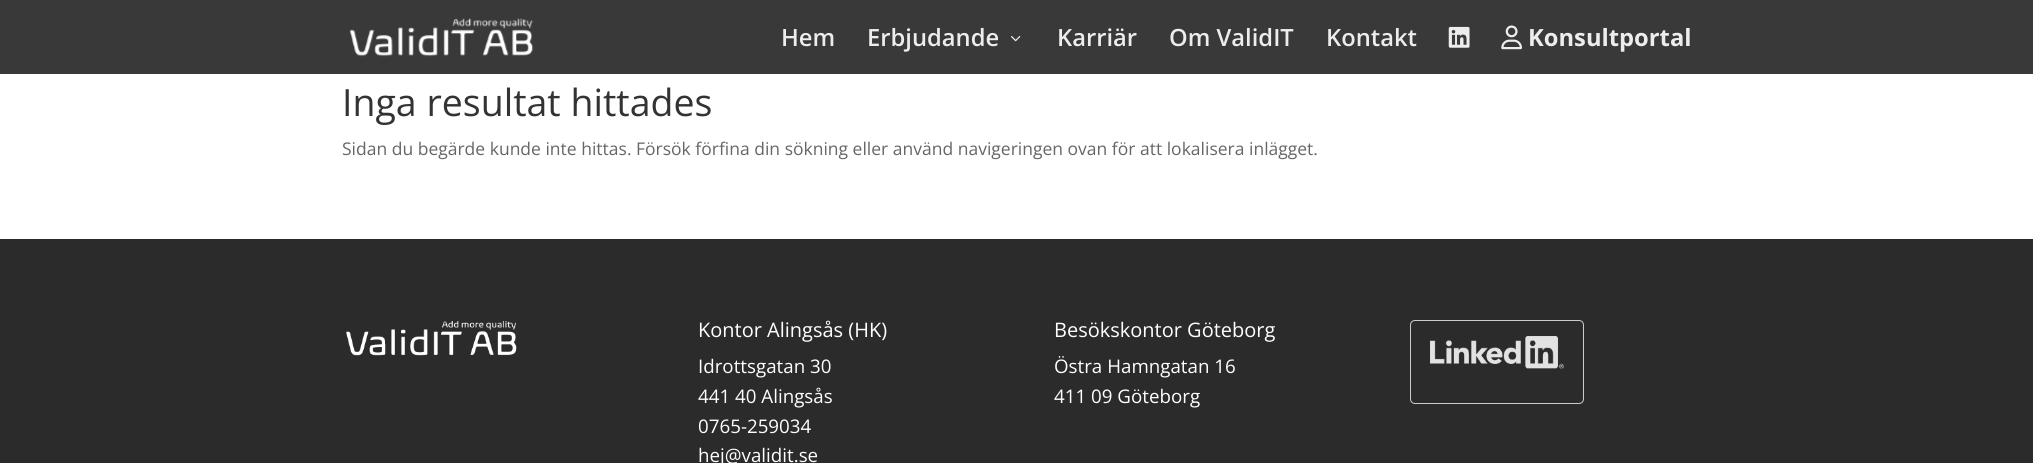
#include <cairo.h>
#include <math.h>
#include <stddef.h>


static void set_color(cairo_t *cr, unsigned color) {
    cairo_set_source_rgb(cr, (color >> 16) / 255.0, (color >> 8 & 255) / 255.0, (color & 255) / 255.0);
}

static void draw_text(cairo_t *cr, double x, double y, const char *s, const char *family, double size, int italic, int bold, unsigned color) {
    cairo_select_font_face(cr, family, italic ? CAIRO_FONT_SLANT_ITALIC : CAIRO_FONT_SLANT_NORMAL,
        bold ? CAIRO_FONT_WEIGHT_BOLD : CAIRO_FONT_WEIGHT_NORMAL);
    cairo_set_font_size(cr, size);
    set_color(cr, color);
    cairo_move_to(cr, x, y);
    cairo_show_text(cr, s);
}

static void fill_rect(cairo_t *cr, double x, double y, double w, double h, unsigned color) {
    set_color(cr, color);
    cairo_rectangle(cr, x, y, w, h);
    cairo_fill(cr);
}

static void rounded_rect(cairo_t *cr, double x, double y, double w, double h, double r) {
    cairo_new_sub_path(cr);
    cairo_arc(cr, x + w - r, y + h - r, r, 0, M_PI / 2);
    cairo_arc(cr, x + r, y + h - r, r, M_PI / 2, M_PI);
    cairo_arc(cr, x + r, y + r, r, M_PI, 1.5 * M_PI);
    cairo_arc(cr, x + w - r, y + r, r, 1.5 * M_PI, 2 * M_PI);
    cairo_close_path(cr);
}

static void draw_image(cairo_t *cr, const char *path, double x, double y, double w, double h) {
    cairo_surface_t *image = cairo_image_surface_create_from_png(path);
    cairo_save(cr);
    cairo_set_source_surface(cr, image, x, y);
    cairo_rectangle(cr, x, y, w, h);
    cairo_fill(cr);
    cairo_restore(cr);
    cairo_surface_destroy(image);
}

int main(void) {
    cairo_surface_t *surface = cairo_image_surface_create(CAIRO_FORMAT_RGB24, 2033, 463);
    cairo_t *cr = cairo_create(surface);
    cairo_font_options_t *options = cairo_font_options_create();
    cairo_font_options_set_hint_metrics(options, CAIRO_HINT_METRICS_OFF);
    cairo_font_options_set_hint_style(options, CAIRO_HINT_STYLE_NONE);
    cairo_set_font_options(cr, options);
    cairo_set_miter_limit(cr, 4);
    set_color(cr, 0xFFFFFF);
    cairo_paint(cr);
    fill_rect(cr, 0, 0, 2033, 74, 0x393939);
    draw_image(cr, "assets/img1.png", 349, 18, 185, 39);
    draw_text(cr, 781, 46, "Hem", "Open Sans SemiBold", 23.75, 0, 0, 0xEDEDED);
    draw_text(cr, 867, 46, "Erbjudande", "Open Sans SemiBold", 23.75, 0, 0, 0xEDEDED);
    draw_image(cr, "assets/img2.png", 1011, 36, 10, 6);
    draw_text(cr, 1057, 46, "Karriär", "Open Sans SemiBold", 23.75, 0, 0, 0xEDEDED);
    draw_text(cr, 1169, 46, "Om ValidIT", "Open Sans SemiBold", 23.75, 0, 0, 0xEDEDED);
    draw_text(cr, 1326, 46, "Kontakt", "Open Sans SemiBold", 23.75, 0, 0, 0xEDEDED);
    draw_image(cr, "assets/img3.png", 1448, 26, 22, 22);
    draw_image(cr, "assets/img4.png", 1501, 25, 21, 25);
    draw_text(cr, 1528, 46, "Konsultportal", "Open Sans", 23.75, 0, 1, 0xEDEDED);
    draw_text(cr, 342, 116, "Inga resultat hittades", "Open Sans", 37.5, 0, 0, 0x333333);
    draw_text(cr, 342, 155, "Sidan du begärde kunde inte hittas. Försök förfina din sökning eller använd navigeringen ovan för att lokalisera inlägget.", "Open Sans", 17.5, 0, 0, 0x666666);
    fill_rect(cr, 0, 239, 2033, 224, 0x2B2B2B);
    draw_image(cr, "assets/img5.png", 346, 321, 171, 35);
    draw_text(cr, 698, 337, "Kontor Alingsås (HK)", "Open Sans", 20, 0, 0, 0xFFFFFF);
    draw_text(cr, 698, 373, "Idrottsgatan 30", "Open Sans", 18.75, 0, 0, 0xFFFFFF);
    draw_text(cr, 698, 403, "441 40 Alingsås", "Open Sans", 18.75, 0, 0, 0xFFFFFF);
    draw_text(cr, 698, 433, "0765-259034", "Open Sans", 18.75, 0, 0, 0xFFFFFF);
    draw_text(cr, 698, 462, "hej@validit.se", "Open Sans", 18.75, 0, 0, 0xFFFFFF);
    draw_text(cr, 1054, 337, "Besökskontor Göteborg", "Open Sans", 20, 0, 0, 0xFFFFFF);
    draw_text(cr, 1054, 373, "Östra Hamngatan 16", "Open Sans", 18.75, 0, 0, 0xFFFFFF);
    draw_text(cr, 1054, 403, "411 09 Göteborg", "Open Sans", 18.75, 0, 0, 0xFFFFFF);
    rounded_rect(cr, 1410.5, 320.5, 173, 83, 4.5);
    set_color(cr, 0xCCCCCC);
    cairo_set_line_width(cr, 1);
    cairo_stroke(cr);
    draw_image(cr, "assets/img6.png", 1430, 336, 134, 33);
    cairo_surface_write_to_png(surface, "output.png");
    cairo_font_options_destroy(options);
    cairo_destroy(cr);
    cairo_surface_destroy(surface);
    return 0;
}
